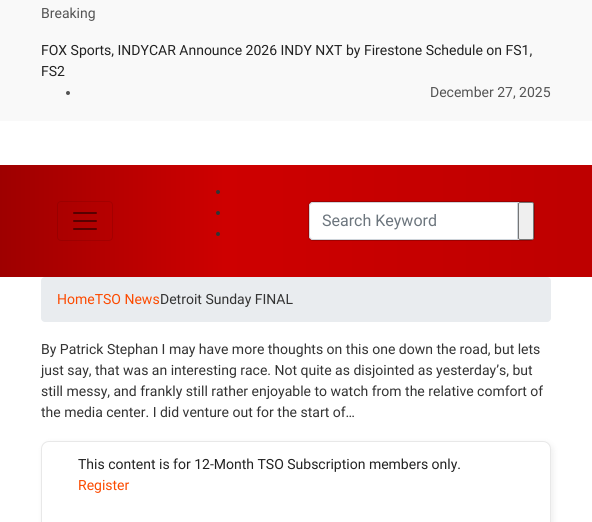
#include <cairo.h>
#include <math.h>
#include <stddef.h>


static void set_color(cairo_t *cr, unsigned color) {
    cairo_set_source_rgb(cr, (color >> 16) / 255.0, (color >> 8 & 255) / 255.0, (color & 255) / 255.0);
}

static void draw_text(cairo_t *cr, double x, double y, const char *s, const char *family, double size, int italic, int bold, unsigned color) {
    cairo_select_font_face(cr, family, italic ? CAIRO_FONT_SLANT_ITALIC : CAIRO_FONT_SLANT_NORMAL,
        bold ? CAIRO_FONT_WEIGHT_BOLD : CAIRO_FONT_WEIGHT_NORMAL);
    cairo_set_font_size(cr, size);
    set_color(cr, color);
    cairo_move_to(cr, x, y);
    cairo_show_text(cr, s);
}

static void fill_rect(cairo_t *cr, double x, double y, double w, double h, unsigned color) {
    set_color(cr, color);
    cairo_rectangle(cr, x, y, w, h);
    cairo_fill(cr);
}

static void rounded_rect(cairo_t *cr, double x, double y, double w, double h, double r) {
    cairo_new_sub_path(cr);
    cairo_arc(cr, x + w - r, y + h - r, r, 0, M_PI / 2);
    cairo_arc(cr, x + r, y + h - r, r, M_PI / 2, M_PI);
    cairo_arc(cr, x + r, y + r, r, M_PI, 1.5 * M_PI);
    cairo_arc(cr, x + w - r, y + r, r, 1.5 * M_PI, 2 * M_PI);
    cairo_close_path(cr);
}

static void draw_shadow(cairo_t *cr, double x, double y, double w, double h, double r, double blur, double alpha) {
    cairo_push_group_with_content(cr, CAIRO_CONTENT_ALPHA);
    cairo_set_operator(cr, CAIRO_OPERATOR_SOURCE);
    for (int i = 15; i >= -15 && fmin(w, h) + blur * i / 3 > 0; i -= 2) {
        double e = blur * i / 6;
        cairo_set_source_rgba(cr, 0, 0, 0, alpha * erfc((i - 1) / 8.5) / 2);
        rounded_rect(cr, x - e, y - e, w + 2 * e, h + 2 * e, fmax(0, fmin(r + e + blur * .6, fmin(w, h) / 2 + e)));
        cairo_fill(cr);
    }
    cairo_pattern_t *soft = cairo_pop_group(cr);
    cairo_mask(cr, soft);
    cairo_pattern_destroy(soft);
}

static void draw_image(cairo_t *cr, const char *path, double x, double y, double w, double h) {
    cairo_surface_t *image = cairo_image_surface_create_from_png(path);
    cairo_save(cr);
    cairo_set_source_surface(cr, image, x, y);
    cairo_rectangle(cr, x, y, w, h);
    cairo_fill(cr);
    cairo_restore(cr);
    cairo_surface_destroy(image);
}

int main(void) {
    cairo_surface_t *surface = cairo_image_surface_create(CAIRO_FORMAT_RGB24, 592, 522);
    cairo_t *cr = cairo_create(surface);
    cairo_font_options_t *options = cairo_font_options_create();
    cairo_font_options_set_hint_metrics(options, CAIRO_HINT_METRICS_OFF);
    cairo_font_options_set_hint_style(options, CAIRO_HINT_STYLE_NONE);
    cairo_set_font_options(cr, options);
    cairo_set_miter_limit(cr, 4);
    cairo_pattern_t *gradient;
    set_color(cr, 0xFFFFFF);
    cairo_paint(cr);
    fill_rect(cr, 0, 0, 592, 121, 0xF9F9F9);
    draw_text(cr, 41, 18, "Breaking", "Roboto", 14, 0, 0, 0x545454);
    draw_text(cr, 41, 55, "FOX Sports, INDYCAR Announce 2026 INDY NXT by Firestone Schedule on FS1,", "Roboto", 14, 0, 0, 0x222222);
    draw_text(cr, 41, 76, "FS2", "Roboto", 14, 0, 0, 0x222222);
    set_color(cr, 0x545454);
    cairo_new_path(cr);
    cairo_arc(cr, 68, 93, 2, 0, 2 * M_PI);
    cairo_fill(cr);
    draw_text(cr, 430, 97, "December 27, 2025", "Roboto", 14, 0, 0, 0x545454);
    gradient = cairo_pattern_create_linear(0, 221, 592, 221);
    cairo_pattern_add_color_stop_rgba(gradient, 0, 0.62, 0, 0, 1);
    cairo_pattern_add_color_stop_rgba(gradient, 0.38, 0.808, 0, 0, 1);
    cairo_pattern_add_color_stop_rgba(gradient, 1, 0.745, 0, 0, 1);
    cairo_set_source(cr, gradient);
    cairo_pattern_destroy(gradient);
    cairo_rectangle(cr, 0, 165, 592, 112);
    cairo_fill(cr);
    rounded_rect(cr, 57.5, 201.5, 55, 39, 3.5);
    cairo_set_source_rgba(cr, 0, 0, 0, 0.1);
    cairo_set_line_width(cr, 1);
    cairo_stroke(cr);
    draw_image(cr, "assets/img1.png", 73, 212, 24, 18);
    set_color(cr, 0x333333);
    cairo_arc(cr, 218, 192, 2, 0, 2 * M_PI);
    cairo_fill(cr);
    cairo_arc(cr, 218, 213, 2, 0, 2 * M_PI);
    cairo_fill(cr);
    cairo_arc(cr, 218, 234, 2, 0, 2 * M_PI);
    cairo_fill(cr);
    set_color(cr, 0xFFFFFF);
    rounded_rect(cr, 309, 202, 225, 38, 4);
    cairo_fill(cr);
    rounded_rect(cr, 308.5, 201.5, 226, 39, 4.5);
    cairo_set_source_rgba(cr, 0, 0, 0, 0.2);
    cairo_stroke(cr);
    cairo_new_path(cr);
    cairo_move_to(cr, 313, 202.5);
    cairo_line_to(cr, 517.5, 202.5);
    cairo_line_to(cr, 517.5, 239.5);
    cairo_line_to(cr, 313, 239.5);
    cairo_curve_to(cr, 311, 239.5, 309.5, 238, 309.5, 236);
    cairo_line_to(cr, 309.5, 206);
    cairo_curve_to(cr, 309.5, 204, 311, 202.5, 313, 202.5);
    cairo_close_path(cr);
    set_color(cr, 0xCED4DA);
    cairo_stroke(cr);
    draw_text(cr, 322, 226, "Search Keyword", "Roboto", 16, 0, 0, 0x6C757D);
    set_color(cr, 0xEFEFEF);
    rounded_rect(cr, 518.5, 202.5, 15, 37, 1.5);
    cairo_fill_preserve(cr);
    set_color(cr, 0x767676);
    cairo_stroke(cr);
    set_color(cr, 0xE9ECEF);
    rounded_rect(cr, 41, 277, 510, 45, 4);
    cairo_fill(cr);
    draw_text(cr, 57, 304, "HomeTSO News", "Roboto", 14, 0, 0, 0xFC4A00);
    draw_text(cr, 160, 304, "Detroit Sunday FINAL", "Roboto", 14, 0, 0, 0x333333);
    draw_text(cr, 41, 354, "By Patrick Stephan I may have more thoughts on this one down the road, but lets", "Roboto", 14, 0, 0, 0x333333);
    draw_text(cr, 41, 375, "just say, that was an interesting race. Not quite as disjointed as yesterday’s, but", "Roboto", 14, 0, 0, 0x333333);
    draw_text(cr, 41, 396, "still messy, and frankly still rather enjoyable to watch from the relative comfort of", "Roboto", 14, 0, 0, 0x333333);
    draw_text(cr, 41, 417, "the media center. I did venture out for the start of…", "Roboto", 14, 0, 0, 0x333333);
    set_color(cr, 0x000000);
    draw_shadow(cr, 43, 443, 510, 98, 8, 3.5, 0.07);
    set_color(cr, 0xFFFFFF);
    rounded_rect(cr, 41.5, 441.5, 509, 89, 7.5);
    cairo_fill_preserve(cr);
    set_color(cr, 0xE8E8E8);
    cairo_stroke(cr);
    draw_text(cr, 78, 469, "This content is for 12-Month TSO Subscription members only.", "Roboto", 14, 0, 0, 0x222222);
    draw_text(cr, 78, 490, "Register", "Roboto", 14, 0, 0, 0xFC4A00);
    cairo_surface_write_to_png(surface, "output.png");
    cairo_font_options_destroy(options);
    cairo_destroy(cr);
    cairo_surface_destroy(surface);
    return 0;
}
